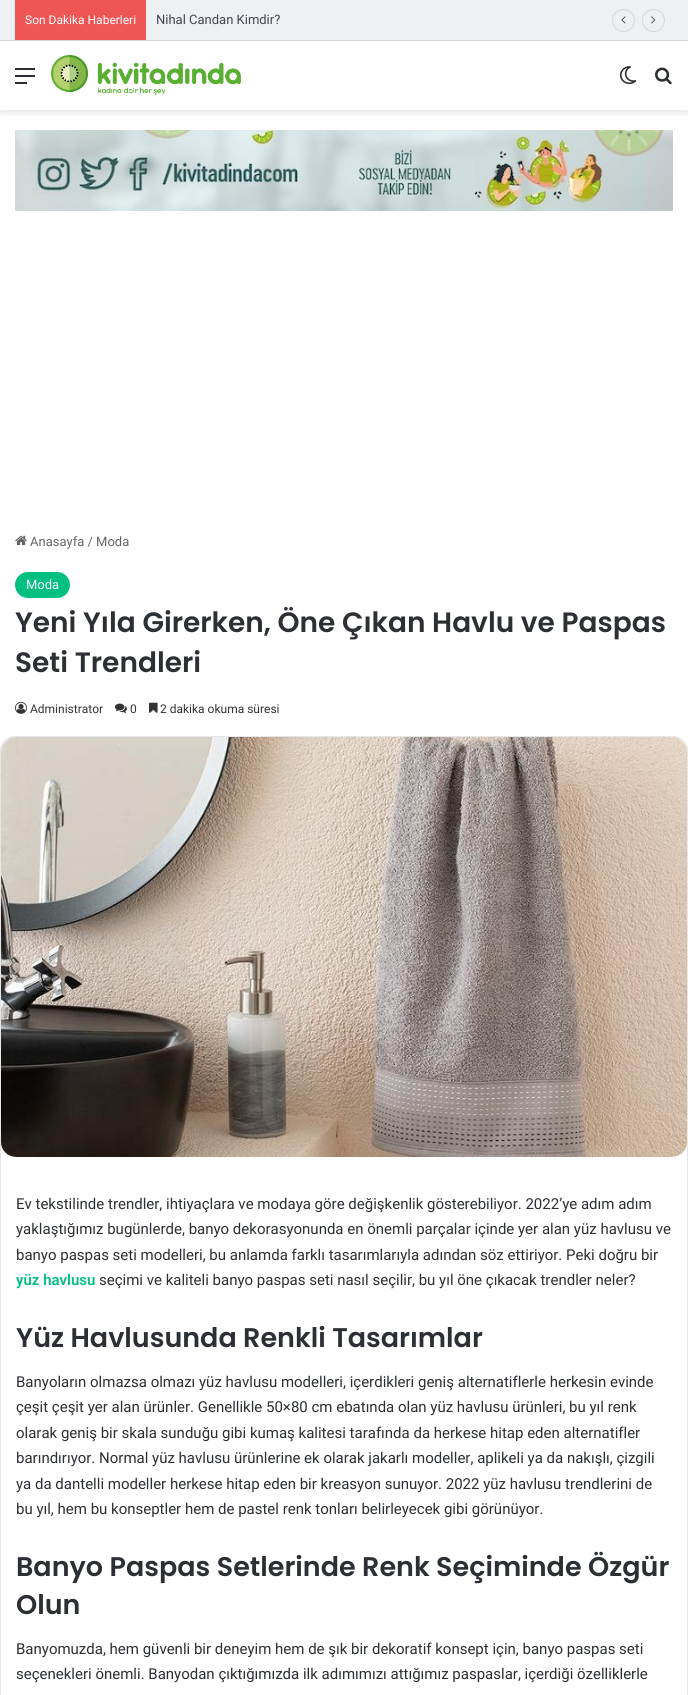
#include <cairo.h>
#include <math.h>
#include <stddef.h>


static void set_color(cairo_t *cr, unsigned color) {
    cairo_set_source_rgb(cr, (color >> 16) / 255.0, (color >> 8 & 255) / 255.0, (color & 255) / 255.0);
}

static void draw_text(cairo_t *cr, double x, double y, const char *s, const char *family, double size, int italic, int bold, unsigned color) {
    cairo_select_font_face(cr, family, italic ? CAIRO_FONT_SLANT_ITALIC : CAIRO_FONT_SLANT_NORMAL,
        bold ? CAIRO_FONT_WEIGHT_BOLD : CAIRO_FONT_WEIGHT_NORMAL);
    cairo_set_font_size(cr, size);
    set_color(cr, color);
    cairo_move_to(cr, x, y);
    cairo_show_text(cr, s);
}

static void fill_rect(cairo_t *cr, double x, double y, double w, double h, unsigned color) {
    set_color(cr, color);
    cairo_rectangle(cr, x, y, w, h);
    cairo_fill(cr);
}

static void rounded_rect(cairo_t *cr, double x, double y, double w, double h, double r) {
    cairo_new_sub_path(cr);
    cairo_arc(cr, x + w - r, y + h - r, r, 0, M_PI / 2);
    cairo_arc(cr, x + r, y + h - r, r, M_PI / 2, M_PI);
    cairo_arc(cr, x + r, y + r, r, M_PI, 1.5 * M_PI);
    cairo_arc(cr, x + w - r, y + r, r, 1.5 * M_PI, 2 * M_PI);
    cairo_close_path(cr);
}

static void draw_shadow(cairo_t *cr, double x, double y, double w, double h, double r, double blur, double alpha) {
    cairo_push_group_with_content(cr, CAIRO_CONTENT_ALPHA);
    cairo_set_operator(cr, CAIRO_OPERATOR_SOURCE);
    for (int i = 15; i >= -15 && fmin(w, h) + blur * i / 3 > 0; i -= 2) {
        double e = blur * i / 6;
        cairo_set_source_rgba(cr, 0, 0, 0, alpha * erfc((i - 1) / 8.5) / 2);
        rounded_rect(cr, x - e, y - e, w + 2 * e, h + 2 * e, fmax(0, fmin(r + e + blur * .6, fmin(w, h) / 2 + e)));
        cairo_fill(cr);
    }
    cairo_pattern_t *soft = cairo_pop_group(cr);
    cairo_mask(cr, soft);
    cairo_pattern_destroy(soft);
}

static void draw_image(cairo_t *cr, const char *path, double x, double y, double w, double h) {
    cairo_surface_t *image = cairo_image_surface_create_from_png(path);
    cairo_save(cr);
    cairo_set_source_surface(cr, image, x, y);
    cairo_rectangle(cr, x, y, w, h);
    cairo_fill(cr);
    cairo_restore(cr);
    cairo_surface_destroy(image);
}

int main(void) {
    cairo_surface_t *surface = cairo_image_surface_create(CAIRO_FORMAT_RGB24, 688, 1695);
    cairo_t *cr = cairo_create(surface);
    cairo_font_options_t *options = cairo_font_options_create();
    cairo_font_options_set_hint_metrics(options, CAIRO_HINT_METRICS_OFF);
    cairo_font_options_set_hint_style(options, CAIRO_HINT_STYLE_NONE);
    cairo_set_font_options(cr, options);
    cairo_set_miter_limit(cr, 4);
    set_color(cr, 0xFFFFFF);
    cairo_paint(cr);
    cairo_save(cr);
    cairo_rectangle(cr, 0, 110, 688, 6);
    cairo_clip(cr);
    set_color(cr, 0x000000);
    draw_shadow(cr, 0, 44, 688, 69, 0, 3.5, 0.1);
    cairo_restore(cr);
    fill_rect(cr, 0, 0, 688, 40, 0xEFF0F1);
    fill_rect(cr, 0, 40, 688, 1, 0xD7D8D9);
    fill_rect(cr, 15, 0, 131, 40, 0xF05555);
    draw_text(cr, 25, 24, "Son Dakika Haberleri", "Roboto", 12, 0, 0, 0xFFFFFF);
    draw_text(cr, 156, 24, "Nihal Candan Kimdir?", "Roboto", 13, 0, 0, 0x434955);
    cairo_new_path(cr);
    cairo_arc(cr, 623.5, 20.5, 11, 0, 2 * M_PI);
    set_color(cr, 0xD7D8D9);
    cairo_set_line_width(cr, 1);
    cairo_stroke(cr);
    draw_image(cr, "assets/img1.png", 621, 16, 5, 8);
    cairo_arc(cr, 653.5, 20.5, 11, 0, 2 * M_PI);
    cairo_stroke(cr);
    draw_image(cr, "assets/img2.png", 651, 16, 5, 8);
    fill_rect(cr, 15, 75, 20, 2, 0x2C2F34);
    fill_rect(cr, 15, 68, 20, 2, 0x2C2F34);
    fill_rect(cr, 15, 82, 12, 2, 0x2C2F34);
    draw_image(cr, "assets/img3.png", 51, 55, 190, 41);
    draw_image(cr, "assets/img4.png", 620, 66, 17, 19);
    draw_image(cr, "assets/img5.png", 655, 67, 17, 18);
    draw_image(cr, "assets/img6.png", 15, 130, 658, 81);
    draw_image(cr, "assets/img7.png", 15, 535, 12, 11);
    draw_text(cr, 30, 546, "Anasayfa / Moda", "Roboto", 13, 0, 0, 0x666666);
    set_color(cr, 0x00BF80);
    rounded_rect(cr, 15, 572, 55, 26, 13);
    cairo_fill(cr);
    draw_text(cr, 26, 589, "Moda", "Roboto", 13, 0, 0, 0xFFFFFF);
    draw_text(cr, 15, 632, "Yeni Yıla Girerken, Öne Çıkan Havlu ve Paspas", "Poppins SemiBold", 28, 0, 0, 0x2C2F34);
    draw_text(cr, 15, 672, "Seti Trendleri", "Poppins SemiBold", 28, 0, 0, 0x2C2F34);
    draw_image(cr, "assets/img8.png", 15, 701, 12, 13);
    draw_text(cr, 30, 713, "Administrator", "Roboto", 12, 0, 0, 0x333333);
    draw_image(cr, "assets/img9.png", 115, 703, 12, 10);
    draw_text(cr, 130, 713, "0", "Roboto", 12, 0, 0, 0x333333);
    draw_image(cr, "assets/img10.png", 149, 702, 9, 11);
    draw_text(cr, 160, 713, "2 dakika okuma süresi", "Roboto", 12, 0, 0, 0x333333);
    rounded_rect(cr, 0.5, 736.5, 687, 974, 14.5);
    set_color(cr, 0xE6E6E6);
    cairo_stroke(cr);
    draw_image(cr, "assets/img11.png", 1, 737, 686, 420);
    draw_text(cr, 16, 1209, "Ev tekstilinde trendler, ihtiyaçlara ve modaya göre değişkenlik gösterebiliyor. 2022’ye adım adım", "Roboto", 15, 0, 0, 0x2C2F34);
    draw_text(cr, 16, 1234, "yaklaştığımız bugünlerde, banyo dekorasyonunda en önemli parçalar içinde yer alan yüz havlusu ve", "Roboto", 15, 0, 0, 0x2C2F34);
    draw_text(cr, 16, 1260, "banyo paspas seti modelleri, bu anlamda farklı tasarımlarıyla adından söz ettiriyor. Peki doğru bir", "Roboto", 15, 0, 0, 0x2C2F34);
    draw_text(cr, 16, 1285, "yüz havlusu", "Roboto SemiBold", 15, 0, 0, 0x00BF80);
    draw_text(cr, 99, 1285, "seçimi ve kaliteli banyo paspas seti nasıl seçilir, bu yıl öne çıkacak trendler neler?", "Roboto", 15, 0, 0, 0x2C2F34);
    draw_text(cr, 16, 1347, "Yüz Havlusunda Renkli Tasarımlar", "Poppins SemiBold", 27, 0, 0, 0x2C2F34);
    draw_text(cr, 16, 1387, "Banyoların olmazsa olmazı yüz havlusu modelleri, içerdikleri geniş alternatiflerle herkesin evinde", "Roboto", 15, 0, 0, 0x2C2F34);
    draw_text(cr, 16, 1412, "çeşit çeşit yer alan ürünler. Genellikle 50×80 cm ebatında olan yüz havlusu ürünleri, bu yıl renk", "Roboto", 15, 0, 0, 0x2C2F34);
    draw_text(cr, 16, 1438, "olarak geniş bir skala sunduğu gibi kumaş kalitesi tarafında da herkese hitap eden alternatifler", "Roboto", 15, 0, 0, 0x2C2F34);
    draw_text(cr, 16, 1463, "barındırıyor. Normal yüz havlusu ürünlerine ek olarak jakarlı modeller, aplikeli ya da nakışlı, çizgili", "Roboto", 15, 0, 0, 0x2C2F34);
    draw_text(cr, 16, 1489, "ya da dantelli modeller herkese hitap eden bir kreasyon sunuyor. 2022 yüz havlusu trendlerini de", "Roboto", 15, 0, 0, 0x2C2F34);
    draw_text(cr, 16, 1514, "bu yıl, hem bu konseptler hem de pastel renk tonları belirleyecek gibi görünüyor.", "Roboto", 15, 0, 0, 0x2C2F34);
    draw_text(cr, 16, 1576, "Banyo Paspas Setlerinde Renk Seçiminde Özgür", "Poppins SemiBold", 27, 0, 0, 0x2C2F34);
    draw_text(cr, 16, 1614, "Olun", "Poppins SemiBold", 27, 0, 0, 0x2C2F34);
    draw_text(cr, 16, 1654, "Banyomuzda, hem güvenli bir deneyim hem de şık bir dekoratif konsept için, banyo paspas seti", "Roboto", 15, 0, 0, 0x2C2F34);
    draw_text(cr, 16, 1679, "seçenekleri önemli. Banyodan çıktığımızda ilk adımımızı attığımız paspaslar, içerdiği özelliklerle", "Roboto", 15, 0, 0, 0x2C2F34);
    cairo_surface_write_to_png(surface, "output.png");
    cairo_font_options_destroy(options);
    cairo_destroy(cr);
    cairo_surface_destroy(surface);
    return 0;
}
